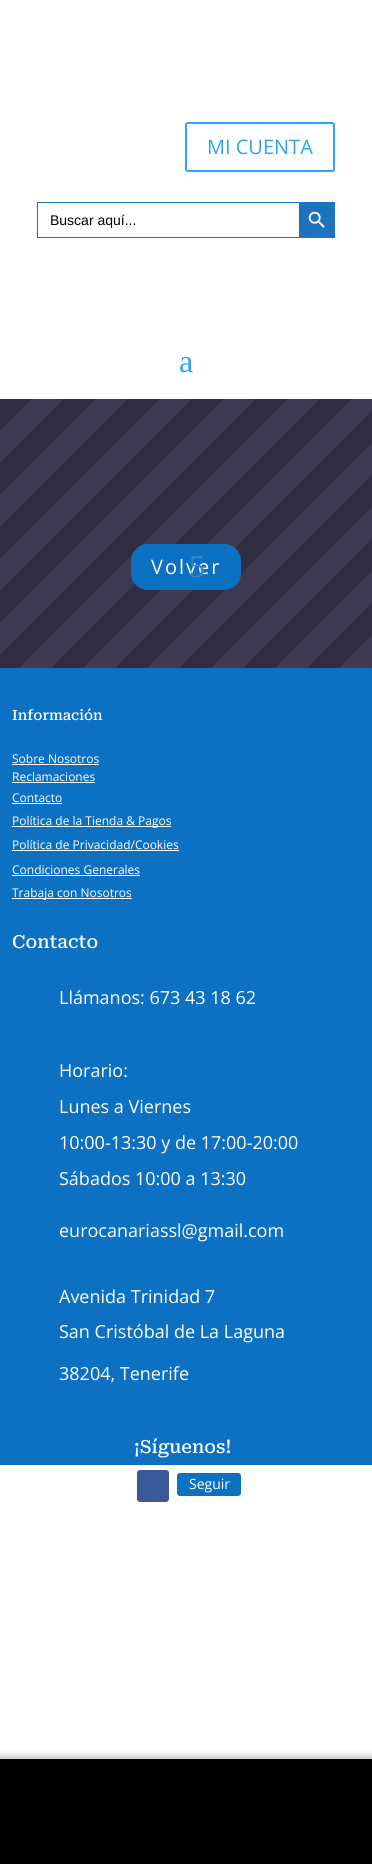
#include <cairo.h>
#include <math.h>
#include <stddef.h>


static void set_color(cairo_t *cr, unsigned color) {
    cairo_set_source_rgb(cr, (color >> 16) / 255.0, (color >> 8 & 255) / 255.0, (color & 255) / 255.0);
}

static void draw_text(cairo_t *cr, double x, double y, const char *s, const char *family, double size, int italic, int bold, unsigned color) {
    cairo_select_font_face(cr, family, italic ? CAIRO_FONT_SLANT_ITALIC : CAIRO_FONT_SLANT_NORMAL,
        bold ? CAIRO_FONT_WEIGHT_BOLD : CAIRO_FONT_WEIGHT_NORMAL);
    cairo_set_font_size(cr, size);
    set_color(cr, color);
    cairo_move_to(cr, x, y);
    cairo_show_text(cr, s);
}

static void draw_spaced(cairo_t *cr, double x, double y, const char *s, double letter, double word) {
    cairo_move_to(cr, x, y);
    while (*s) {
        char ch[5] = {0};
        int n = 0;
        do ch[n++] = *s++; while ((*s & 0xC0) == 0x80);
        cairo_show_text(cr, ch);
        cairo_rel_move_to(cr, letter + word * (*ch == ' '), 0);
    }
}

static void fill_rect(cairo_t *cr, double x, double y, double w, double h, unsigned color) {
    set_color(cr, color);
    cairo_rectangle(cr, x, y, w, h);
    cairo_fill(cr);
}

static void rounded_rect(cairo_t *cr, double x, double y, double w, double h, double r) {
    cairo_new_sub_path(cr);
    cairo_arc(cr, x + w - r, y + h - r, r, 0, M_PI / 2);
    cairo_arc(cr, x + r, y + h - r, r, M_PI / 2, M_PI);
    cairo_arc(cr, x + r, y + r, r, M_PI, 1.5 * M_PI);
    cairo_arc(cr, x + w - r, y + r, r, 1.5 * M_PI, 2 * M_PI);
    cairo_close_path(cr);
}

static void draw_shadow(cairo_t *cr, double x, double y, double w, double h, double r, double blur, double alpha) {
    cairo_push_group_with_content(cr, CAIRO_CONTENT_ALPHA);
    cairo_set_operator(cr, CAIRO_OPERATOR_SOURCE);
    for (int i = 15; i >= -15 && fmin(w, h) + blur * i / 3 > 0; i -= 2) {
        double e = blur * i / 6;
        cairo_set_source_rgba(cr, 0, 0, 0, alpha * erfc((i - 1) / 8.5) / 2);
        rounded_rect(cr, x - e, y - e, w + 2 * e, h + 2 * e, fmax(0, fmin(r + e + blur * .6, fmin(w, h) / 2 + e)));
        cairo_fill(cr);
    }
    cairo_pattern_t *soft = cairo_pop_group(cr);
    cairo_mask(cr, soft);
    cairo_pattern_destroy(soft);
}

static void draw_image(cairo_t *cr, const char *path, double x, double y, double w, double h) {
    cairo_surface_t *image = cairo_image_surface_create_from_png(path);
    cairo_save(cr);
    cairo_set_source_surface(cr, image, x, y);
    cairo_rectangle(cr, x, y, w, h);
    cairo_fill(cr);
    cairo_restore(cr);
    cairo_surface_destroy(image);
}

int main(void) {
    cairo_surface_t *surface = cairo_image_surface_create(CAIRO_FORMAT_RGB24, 372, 1864);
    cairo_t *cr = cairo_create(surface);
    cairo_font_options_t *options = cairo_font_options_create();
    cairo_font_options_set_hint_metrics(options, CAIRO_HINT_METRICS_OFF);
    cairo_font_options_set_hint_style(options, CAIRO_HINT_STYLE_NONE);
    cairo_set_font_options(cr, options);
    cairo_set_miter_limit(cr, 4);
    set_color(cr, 0xFFFFFF);
    cairo_paint(cr);
    rounded_rect(cr, 186, 123, 148, 48, 2);
    set_color(cr, 0x2EA3F2);
    cairo_stroke(cr);
    draw_text(cr, 207, 154, "MI CUENTA", "Open Sans", 20, 0, 0, 0x2EA3F2);
    fill_rect(cr, 37, 202, 262, 1, 0x1E73BE);
    fill_rect(cr, 37, 237, 262, 1, 0x1E73BE);
    fill_rect(cr, 37, 202, 1, 36, 0x1E73BE);
    draw_text(cr, 50, 225, "Buscar aquí...", "Liberation Sans", 14, 0, 0, 0x000000);
    fill_rect(cr, 299, 202, 36, 36, 0x1E73BE);
    draw_image(cr, "assets/img1.png", 308, 211, 17, 17);
    draw_text(cr, 179, 372, "a", "Liberation Serif", 32, 0, 0, 0x2EA3F2);
    fill_rect(cr, 0, 399, 372, 269, 0x3D3953);
    draw_image(cr, "assets/img2.png", 0, 399, 372, 269);
    set_color(cr, 0x0C71C3);
    rounded_rect(cr, 131, 544, 110, 46, 17);
    cairo_fill(cr);
    cairo_select_font_face(cr, "Open Sans", CAIRO_FONT_SLANT_NORMAL, CAIRO_FONT_WEIGHT_NORMAL);
    cairo_set_font_size(cr, 20);
    set_color(cr, 0xFFFFFF);
    draw_spaced(cr, 151, 574, "Volver", 2, 0);
    cairo_select_font_face(cr, "Liberation Serif", CAIRO_FONT_SLANT_NORMAL, CAIRO_FONT_WEIGHT_NORMAL);
    cairo_set_font_size(cr, 32);
    set_color(cr, 0x3388CD);
    draw_spaced(cr, 189, 577, "5", 2, 0);
    fill_rect(cr, 0, 668, 372, 797, 0x0C71C3);
    draw_text(cr, 12, 720, "Información", "Roboto Serif Medium", 14, 0, 0, 0xFFFFFF);
    draw_text(cr, 12, 763, "Sobre Nosotros", "Open Sans", 12, 0, 0, 0xFFFFFF);
    fill_rect(cr, 12, 764, 87, 1, 0xFFFFFF);
    draw_text(cr, 12, 781, "Reclamaciones", "Open Sans", 12, 0, 0, 0xFFFFFF);
    fill_rect(cr, 12, 782, 83, 1, 0xFFFFFF);
    draw_text(cr, 12, 802, "Contacto", "Open Sans", 12, 0, 0, 0xFFFFFF);
    fill_rect(cr, 12, 803, 50, 1, 0xFFFFFF);
    fill_rect(cr, 12, 826, 159, 1, 0xFFFFFF);
    draw_text(cr, 12, 825, "Política de la Tienda & Pagos", "Open Sans", 12, 0, 0, 0xFFFFFF);
    draw_text(cr, 12, 849, "Política de Privacidad/Cookies", "Open Sans", 12, 0, 0, 0xFFFFFF);
    fill_rect(cr, 12, 850, 167, 1, 0xFFFFFF);
    draw_text(cr, 12, 874, "Condiciones Generales", "Open Sans", 12, 0, 0, 0xFFFFFF);
    fill_rect(cr, 12, 875, 128, 1, 0xFFFFFF);
    fill_rect(cr, 12, 898, 120, 1, 0xFFFFFF);
    draw_text(cr, 12, 897, "Trabaja con Nosotros", "Open Sans", 12, 0, 0, 0xFFFFFF);
    draw_text(cr, 12, 948, "Contacto", "Roboto Serif Medium", 18, 0, 0, 0xFFFFFF);
    draw_text(cr, 59, 1004, "Llámanos: 673 43 18 62", "Open Sans", 18, 0, 0, 0xFFFFFF);
    draw_text(cr, 59, 1077, "Horario:", "Open Sans", 18, 0, 0, 0xFFFFFF);
    draw_text(cr, 59, 1113, "Lunes a Viernes", "Open Sans", 18, 0, 0, 0xFFFFFF);
    draw_text(cr, 59, 1149, "10:00-13:30 y de 17:00-20:00", "Open Sans", 18, 0, 0, 0xFFFFFF);
    draw_text(cr, 59, 1185, "Sábados 10:00 a 13:30", "Open Sans", 18, 0, 0, 0xFFFFFF);
    draw_text(cr, 59, 1237, "eurocanariassl@gmail.com", "Open Sans", 18, 0, 0, 0xFFFFFF);
    draw_text(cr, 59, 1303, "Avenida Trinidad 7", "Open Sans", 18, 0, 0, 0xFFFFFF);
    draw_text(cr, 59, 1338, "San Cristóbal de La Laguna", "Open Sans", 18, 0, 0, 0xFFFFFF);
    draw_text(cr, 59, 1380, "38204, Tenerife", "Open Sans", 18, 0, 0, 0xFFFFFF);
    draw_text(cr, 134, 1453, "¡Síguenos!", "Roboto Serif Medium", 18, 0, 0, 0xFFFFFF);
    set_color(cr, 0x3B5998);
    rounded_rect(cr, 137, 1470, 32, 32, 3);
    cairo_fill(cr);
    set_color(cr, 0x0C71C3);
    rounded_rect(cr, 177, 1473, 64, 23, 3);
    cairo_fill(cr);
    draw_text(cr, 189, 1489, "Seguir", "Open Sans", 14, 0, 0, 0xFFFFFF);
    set_color(cr, 0xCCCCCC);
    draw_shadow(cr, -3, 1755, 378, 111, 0, 3, 1);
    fill_rect(cr, 0, 1759, 372, 105, 0x000000);
    cairo_surface_write_to_png(surface, "output.png");
    cairo_font_options_destroy(options);
    cairo_destroy(cr);
    cairo_surface_destroy(surface);
    return 0;
}
